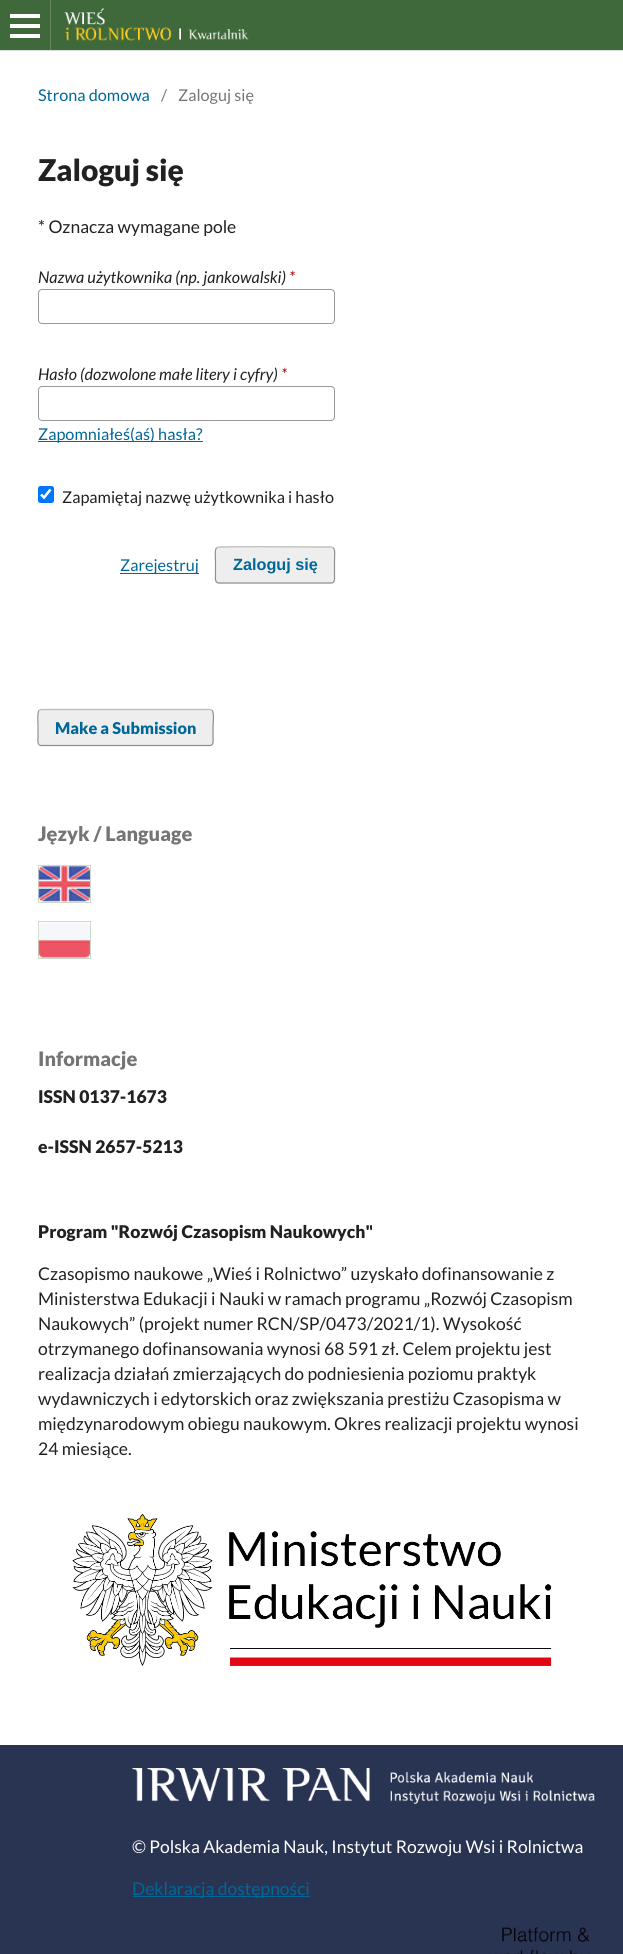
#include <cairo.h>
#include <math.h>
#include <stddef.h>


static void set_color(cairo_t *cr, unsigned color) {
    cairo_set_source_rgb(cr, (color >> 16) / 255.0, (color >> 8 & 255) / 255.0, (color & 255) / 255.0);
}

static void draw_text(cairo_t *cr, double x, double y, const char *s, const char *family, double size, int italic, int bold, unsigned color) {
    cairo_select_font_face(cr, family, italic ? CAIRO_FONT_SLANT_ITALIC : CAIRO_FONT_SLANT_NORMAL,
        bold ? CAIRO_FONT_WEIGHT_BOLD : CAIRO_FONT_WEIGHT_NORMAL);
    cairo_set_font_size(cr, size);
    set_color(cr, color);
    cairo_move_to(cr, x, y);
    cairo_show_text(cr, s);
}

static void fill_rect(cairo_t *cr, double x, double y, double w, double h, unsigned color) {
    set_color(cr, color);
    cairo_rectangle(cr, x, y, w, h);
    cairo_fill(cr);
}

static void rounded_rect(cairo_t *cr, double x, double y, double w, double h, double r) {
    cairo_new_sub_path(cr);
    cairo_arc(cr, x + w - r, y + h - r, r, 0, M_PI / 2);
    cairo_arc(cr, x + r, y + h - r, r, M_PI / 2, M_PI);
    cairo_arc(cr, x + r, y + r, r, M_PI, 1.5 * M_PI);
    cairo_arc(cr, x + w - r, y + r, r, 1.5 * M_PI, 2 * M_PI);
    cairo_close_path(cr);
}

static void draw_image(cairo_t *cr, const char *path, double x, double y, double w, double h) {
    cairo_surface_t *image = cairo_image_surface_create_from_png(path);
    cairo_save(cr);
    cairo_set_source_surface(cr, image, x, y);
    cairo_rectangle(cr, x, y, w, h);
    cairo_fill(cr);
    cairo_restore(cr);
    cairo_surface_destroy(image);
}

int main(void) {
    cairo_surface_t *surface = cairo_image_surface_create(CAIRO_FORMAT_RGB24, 623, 1954);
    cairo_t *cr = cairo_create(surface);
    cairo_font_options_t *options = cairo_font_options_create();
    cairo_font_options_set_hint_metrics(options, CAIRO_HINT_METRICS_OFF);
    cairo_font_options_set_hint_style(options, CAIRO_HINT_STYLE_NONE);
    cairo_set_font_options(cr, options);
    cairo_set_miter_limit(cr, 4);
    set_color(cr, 0xFFFFFF);
    cairo_paint(cr);
    fill_rect(cr, 0, 0, 623, 50, 0x40693B);
    fill_rect(cr, 0, 50, 623, 1, 0xDDDDDD);
    fill_rect(cr, 50, 0, 1, 50, 0x668762);
    fill_rect(cr, 10, 34, 30, 4, 0xFFFFFF);
    fill_rect(cr, 10, 14, 30, 4, 0xFFFFFF);
    fill_rect(cr, 10, 24, 30, 4, 0xFFFFFF);
    draw_image(cr, "assets/img1.png", 64, 8, 185, 33);
    draw_text(cr, 38, 101, "Strona domowa", "Lato", 16.25, 0, 0, 0x006798);
    draw_text(cr, 161, 101, "/", "Lato", 16.25, 0, 0, 0x757575);
    draw_text(cr, 178, 101, "Zaloguj się", "Lato", 16.25, 0, 0, 0x757575);
    draw_text(cr, 38, 181, "Zaloguj się", "Lato Black", 30, 0, 0, 0x212121);
    draw_text(cr, 38, 233, "* Oznacza wymagane pole", "Lato", 17.5, 0, 0, 0x212121);
    draw_text(cr, 38, 283, "Nazwa użytkownika (np. jankowalski)", "Lato", 16.25, 1, 0, 0x212121);
    draw_text(cr, 289, 283, "*", "Lato", 16.25, 1, 0, 0xA80000);
    rounded_rect(cr, 38.5, 289.5, 296, 34, 3.5);
    set_color(cr, 0x999999);
    cairo_set_line_width(cr, 1);
    cairo_stroke(cr);
    draw_text(cr, 38, 380, "Hasło (dozwolone małe litery i cyfry)", "Lato", 16.25, 1, 0, 0x212121);
    draw_text(cr, 281, 380, "*", "Lato", 16.25, 1, 0, 0xA80000);
    rounded_rect(cr, 38.5, 386.5, 296, 34, 3.5);
    set_color(cr, 0x999999);
    cairo_stroke(cr);
    fill_rect(cr, 38, 441, 165, 1, 0x006798);
    draw_text(cr, 38, 440, "Zapomniałeś(aś) hasła?", "Lato", 16.25, 0, 0, 0x006798);
    set_color(cr, 0x0075FF);
    rounded_rect(cr, 38, 486, 16, 17, 2.5);
    cairo_fill(cr);
    cairo_new_path(cr);
    cairo_move_to(cr, 41, 494.5);
    cairo_line_to(cr, 44, 497.5);
    cairo_line_to(cr, 50.5, 489.5);
    set_color(cr, 0xFFFFFF);
    cairo_set_line_width(cr, 2.6);
    cairo_stroke(cr);
    draw_text(cr, 62, 503, "Zapamiętaj nazwę użytkownika i hasło", "Lato", 16.25, 0, 0, 0x212121);
    fill_rect(cr, 120, 573, 79, 1, 0x006798);
    draw_text(cr, 120, 571, "Zarejestruj", "Lato", 16.25, 0, 0, 0x006798);
    set_color(cr, 0xEEEEEE);
    rounded_rect(cr, 215, 546, 120, 38, 4);
    cairo_fill(cr);
    cairo_new_path(cr);
    cairo_move_to(cr, 216.5, 548);
    cairo_line_to(cr, 217, 547.5);
    cairo_curve_to(cr, 219.5, 546, 302.5, 547, 312.5, 547);
    cairo_line_to(cr, 331, 547);
    cairo_line_to(cr, 333.5, 548);
    set_color(cr, 0xBBBBBB);
    cairo_set_line_width(cr, 1.2);
    cairo_stroke(cr);
    cairo_new_path(cr);
    cairo_move_to(cr, 333.5, 548);
    cairo_curve_to(cr, 335.5, 550, 334.5, 557.5, 334.5, 560);
    cairo_line_to(cr, 334.5, 575);
    cairo_curve_to(cr, 334.5, 577.5, 335.5, 583, 331, 583);
    cairo_line_to(cr, 219, 583);
    cairo_curve_to(cr, 214.5, 583, 215.5, 577.5, 215.5, 575);
    cairo_line_to(cr, 215.5, 560);
    cairo_curve_to(cr, 215.5, 557.5, 214.5, 550, 216.5, 548);
    cairo_set_source_rgba(cr, 0, 0, 0, 0.4);
    cairo_stroke(cr);
    draw_text(cr, 233, 570, "Zaloguj się", "Liberation Sans", 16.25, 0, 1, 0x006798);
    set_color(cr, 0xEEEEEE);
    rounded_rect(cr, 38, 709, 176, 37, 4);
    cairo_fill(cr);
    cairo_new_path(cr);
    cairo_move_to(cr, 39, 710.5);
    cairo_line_to(cr, 41, 709.5);
    cairo_line_to(cr, 210, 709.5);
    cairo_line_to(cr, 212, 710.5);
    set_color(cr, 0xBBBBBB);
    cairo_stroke(cr);
    cairo_new_path(cr);
    cairo_move_to(cr, 212, 710.5);
    cairo_curve_to(cr, 214.5, 712.5, 213, 724.5, 213, 727.5);
    cairo_line_to(cr, 213, 737.5);
    cairo_curve_to(cr, 213, 740, 214, 745.5, 210, 745.5);
    cairo_line_to(cr, 41, 745.5);
    cairo_curve_to(cr, 37, 745.5, 38, 740, 38, 737.5);
    cairo_line_to(cr, 38, 727.5);
    cairo_curve_to(cr, 38, 724.5, 37, 712.5, 39, 710.5);
    cairo_set_source_rgba(cr, 0, 0, 0, 0.4);
    cairo_stroke(cr);
    draw_text(cr, 55, 734, "Make a Submission", "Lato Black", 16.25, 0, 0, 0x006798);
    draw_text(cr, 38, 841, "Język / Language", "Lato Black", 20, 0, 0, 0x757575);
    cairo_rectangle(cr, 38.5, 865.5, 52, 37);
    set_color(cr, 0xCCDACB);
    cairo_set_line_width(cr, 1);
    cairo_stroke(cr);
    draw_image(cr, "assets/img2.png", 38, 866, 52, 36);
    cairo_rectangle(cr, 38.5, 921.5, 52, 37);
    cairo_stroke(cr);
    draw_image(cr, "assets/img3.png", 38, 922, 52, 36);
    draw_text(cr, 38, 1066, "Informacje", "Lato Black", 20, 0, 0, 0x757575);
    draw_text(cr, 38, 1103, "ISSN 0137-1673", "Lato Black", 17.5, 0, 0, 0x212121);
    draw_text(cr, 38, 1153, "e-ISSN 2657-5213", "Lato Black", 17.5, 0, 0, 0x212121);
    draw_text(cr, 38, 1238, "Program \"Rozwój Czasopism Naukowych\"", "Lato Black", 17.5, 0, 0, 0x212121);
    draw_text(cr, 38, 1280, "Czasopismo naukowe „Wieś i Rolnictwo” uzyskało dofinansowanie z", "Lato", 17.5, 0, 0, 0x212121);
    draw_text(cr, 38, 1305, "Ministerstwa Edukacji i Nauki w ramach programu „Rozwój Czasopism", "Lato", 17.5, 0, 0, 0x212121);
    draw_text(cr, 38, 1330, "Naukowych” (projekt numer RCN/SP/0473/2021/1). Wysokość", "Lato", 17.5, 0, 0, 0x212121);
    draw_text(cr, 38, 1355, "otrzymanego dofinansowania wynosi 68 591 zł. Celem projektu jest", "Lato", 17.5, 0, 0, 0x212121);
    draw_text(cr, 38, 1380, "realizacja działań zmierzających do podniesienia poziomu praktyk", "Lato", 17.5, 0, 0, 0x212121);
    draw_text(cr, 38, 1405, "wydawniczych i edytorskich oraz zwiększania prestiżu Czasopisma w", "Lato", 17.5, 0, 0, 0x212121);
    draw_text(cr, 38, 1430, "międzynarodowym obiegu naukowym. Okres realizacji projektu wynosi", "Lato", 17.5, 0, 0, 0x212121);
    draw_text(cr, 38, 1455, "24 miesiące.", "Lato", 17.5, 0, 0, 0x212121);
    draw_image(cr, "assets/img4.png", 72, 1514, 480, 152);
    fill_rect(cr, 0, 1745, 623, 209, 0x293352);
    draw_image(cr, "assets/img5.png", 132, 1768, 463, 36);
    draw_text(cr, 132, 1853, "© Polska Akademia Nauk, Instytut Rozwoju Wsi i Rolnictwa", "Lato", 17.5, 0, 0, 0xFFFFFF);
    fill_rect(cr, 133, 1896, 177, 1, 0x006798);
    draw_text(cr, 132, 1895, "Deklaracja dostępności", "Lato", 17.5, 0, 0, 0x006798);
    draw_image(cr, "assets/img6.png", 489, 1927, 101, 27);
    cairo_surface_write_to_png(surface, "output.png");
    cairo_font_options_destroy(options);
    cairo_destroy(cr);
    cairo_surface_destroy(surface);
    return 0;
}
